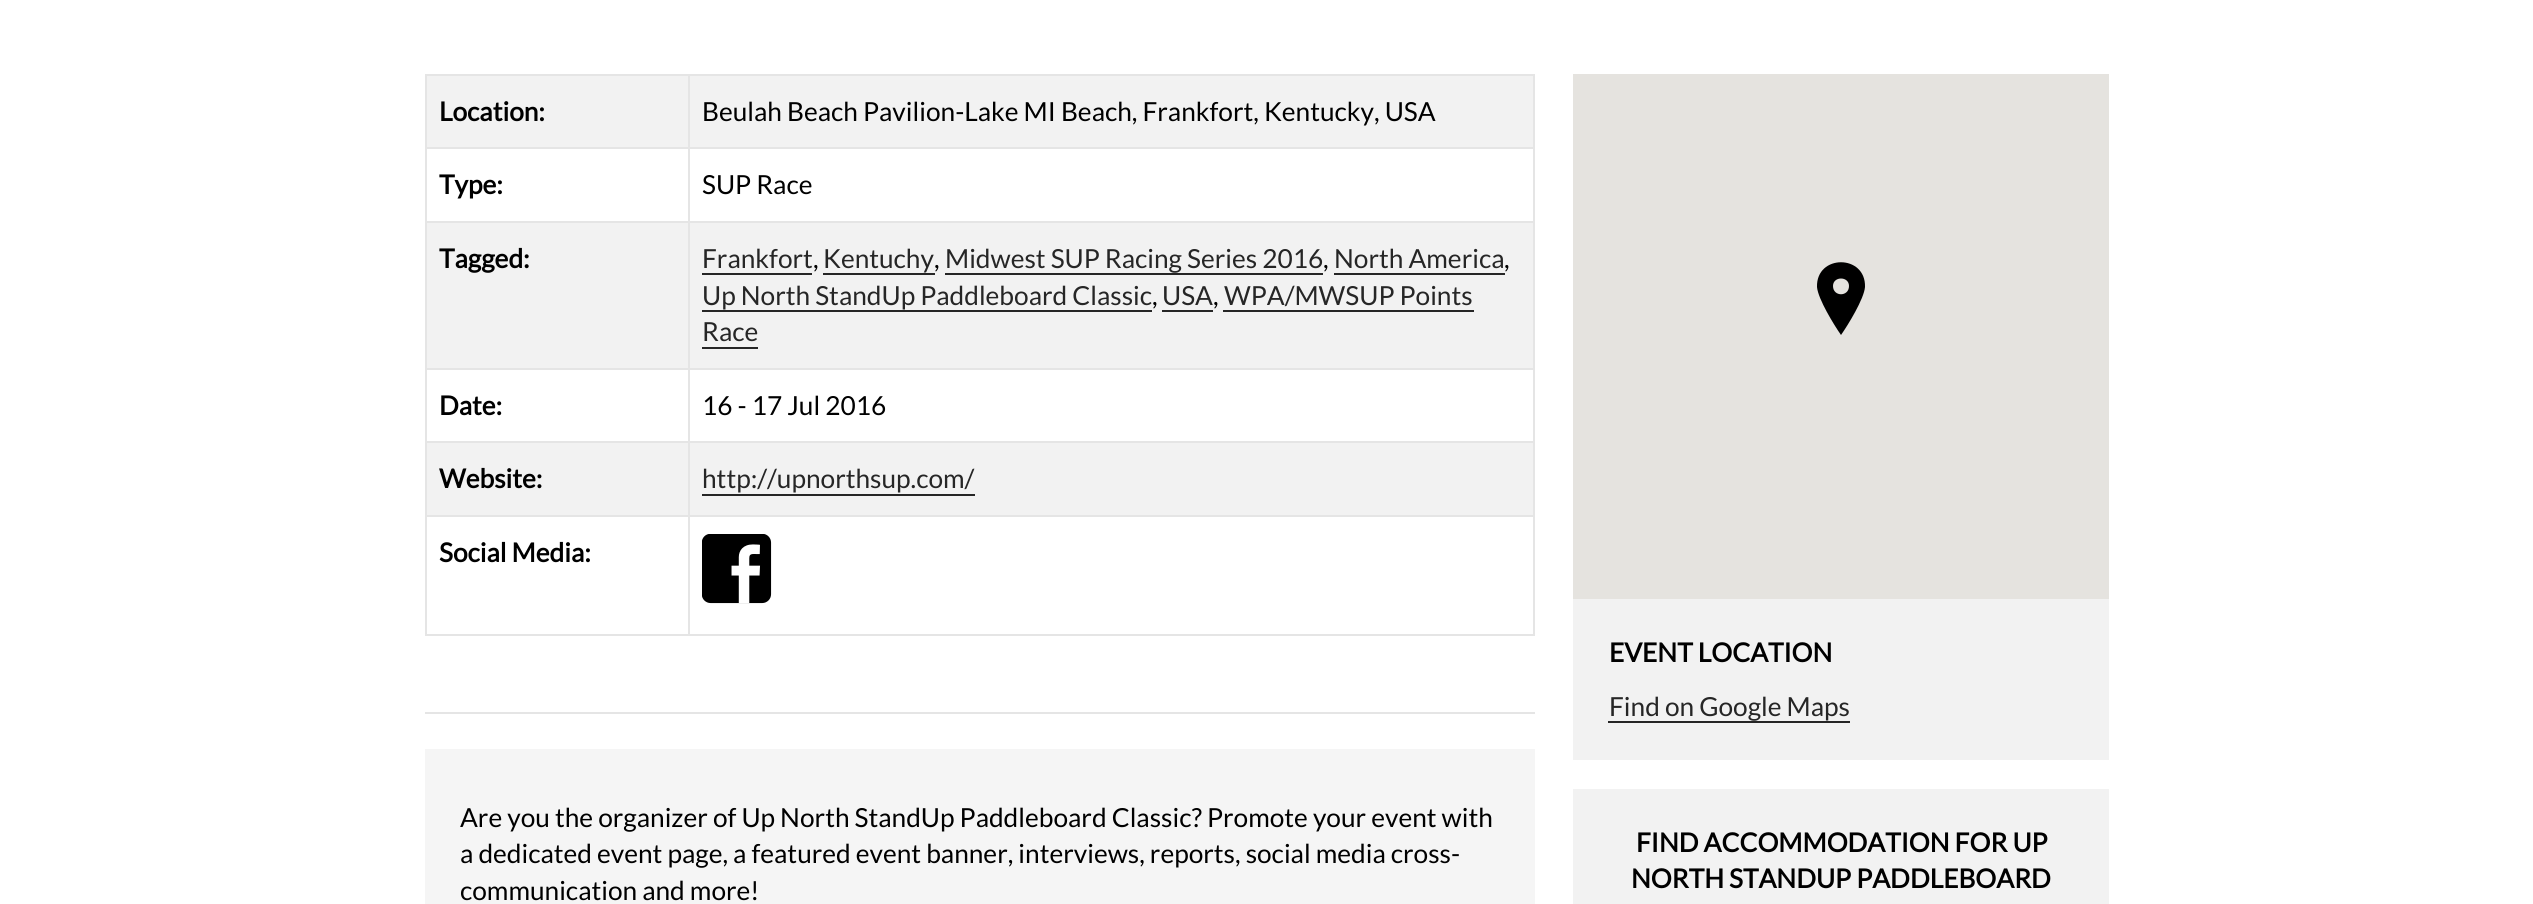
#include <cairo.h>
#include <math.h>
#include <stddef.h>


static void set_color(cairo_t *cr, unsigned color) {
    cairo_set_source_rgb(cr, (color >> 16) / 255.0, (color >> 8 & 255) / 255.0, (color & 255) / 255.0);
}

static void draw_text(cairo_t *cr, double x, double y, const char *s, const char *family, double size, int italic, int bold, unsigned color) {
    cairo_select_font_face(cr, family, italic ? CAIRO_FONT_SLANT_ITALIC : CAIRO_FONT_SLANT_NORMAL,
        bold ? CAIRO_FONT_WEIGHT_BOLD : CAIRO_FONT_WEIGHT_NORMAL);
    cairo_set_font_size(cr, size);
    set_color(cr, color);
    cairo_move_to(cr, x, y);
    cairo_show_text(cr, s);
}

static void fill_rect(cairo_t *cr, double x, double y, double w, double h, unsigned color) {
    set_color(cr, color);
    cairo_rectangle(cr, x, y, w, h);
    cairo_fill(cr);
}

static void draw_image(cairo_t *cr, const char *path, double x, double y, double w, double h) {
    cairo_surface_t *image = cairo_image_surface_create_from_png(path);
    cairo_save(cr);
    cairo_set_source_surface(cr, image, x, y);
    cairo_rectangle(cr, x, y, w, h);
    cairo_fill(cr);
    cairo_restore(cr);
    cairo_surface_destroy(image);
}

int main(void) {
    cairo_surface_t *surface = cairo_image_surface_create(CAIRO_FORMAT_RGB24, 2533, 904);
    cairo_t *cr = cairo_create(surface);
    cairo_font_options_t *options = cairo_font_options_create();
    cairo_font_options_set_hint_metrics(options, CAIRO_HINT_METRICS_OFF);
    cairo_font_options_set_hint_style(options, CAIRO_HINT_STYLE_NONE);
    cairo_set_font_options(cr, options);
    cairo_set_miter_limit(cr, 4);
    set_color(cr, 0xFFFFFF);
    cairo_paint(cr);
    fill_rect(cr, 425, 712, 1110, 2, 0xE5E5E5);
    fill_rect(cr, 427, 76, 1106, 71, 0xF2F2F2);
    fill_rect(cr, 688, 74, 847, 2, 0xE5E5E5);
    fill_rect(cr, 688, 147, 847, 2, 0xE5E5E5);
    fill_rect(cr, 688, 221, 847, 2, 0xE5E5E5);
    fill_rect(cr, 427, 223, 1106, 145, 0xF2F2F2);
    fill_rect(cr, 688, 368, 847, 2, 0xE5E5E5);
    fill_rect(cr, 688, 441, 847, 2, 0xE5E5E5);
    fill_rect(cr, 427, 443, 1106, 72, 0xF2F2F2);
    fill_rect(cr, 688, 515, 847, 2, 0xE5E5E5);
    fill_rect(cr, 1533, 515, 2, 120, 0xE5E5E5);
    fill_rect(cr, 688, 634, 847, 2, 0xE5E5E5);
    fill_rect(cr, 688, 515, 2, 120, 0xE5E5E5);
    fill_rect(cr, 425, 515, 265, 2, 0xE5E5E5);
    fill_rect(cr, 688, 441, 2, 75, 0xE5E5E5);
    fill_rect(cr, 425, 441, 265, 2, 0xE5E5E5);
    fill_rect(cr, 688, 368, 2, 75, 0xE5E5E5);
    fill_rect(cr, 425, 368, 265, 2, 0xE5E5E5);
    fill_rect(cr, 688, 221, 2, 148, 0xE5E5E5);
    fill_rect(cr, 425, 221, 265, 2, 0xE5E5E5);
    fill_rect(cr, 688, 147, 2, 75, 0xE5E5E5);
    fill_rect(cr, 425, 147, 265, 2, 0xE5E5E5);
    fill_rect(cr, 688, 74, 2, 75, 0xE5E5E5);
    fill_rect(cr, 425, 74, 265, 2, 0xE5E5E5);
    fill_rect(cr, 425, 634, 265, 2, 0xE5E5E5);
    fill_rect(cr, 425, 515, 2, 120, 0xE5E5E5);
    fill_rect(cr, 425, 441, 2, 75, 0xE5E5E5);
    fill_rect(cr, 425, 368, 2, 75, 0xE5E5E5);
    fill_rect(cr, 425, 221, 2, 148, 0xE5E5E5);
    fill_rect(cr, 425, 147, 2, 75, 0xE5E5E5);
    fill_rect(cr, 425, 74, 2, 75, 0xE5E5E5);
    draw_text(cr, 439, 121, "Location:", "Lato", 26.25, 0, 1, 0x000000);
    fill_rect(cr, 1533, 441, 2, 75, 0xE5E5E5);
    fill_rect(cr, 1533, 368, 2, 75, 0xE5E5E5);
    fill_rect(cr, 1533, 221, 2, 148, 0xE5E5E5);
    fill_rect(cr, 1533, 147, 2, 75, 0xE5E5E5);
    fill_rect(cr, 1533, 74, 2, 75, 0xE5E5E5);
    draw_text(cr, 702, 121, "Beulah Beach Pavilion-Lake MI Beach, Frankfort, Kentucky, USA", "Lato", 26.25, 0, 0, 0x000000);
    draw_text(cr, 439, 194, "Type:", "Lato", 26.25, 0, 1, 0x000000);
    draw_text(cr, 702, 194, "SUP Race", "Lato", 26.25, 0, 0, 0x000000);
    draw_text(cr, 439, 268, "Tagged:", "Lato", 26.25, 0, 1, 0x000000);
    draw_text(cr, 702, 268, "Frankfort", "Lato", 26.25, 0, 0, 0x262626);
    fill_rect(cr, 702, 273, 110, 2, 0x262626);
    draw_text(cr, 813, 268, ",", "Lato", 26.25, 0, 0, 0x000000);
    draw_text(cr, 823, 268, "Kentuchy", "Lato", 26.25, 0, 0, 0x262626);
    fill_rect(cr, 823, 273, 112, 2, 0x262626);
    draw_text(cr, 934, 268, ",", "Lato", 26.25, 0, 0, 0x000000);
    draw_text(cr, 945, 268, "Midwest SUP Racing Series 2016", "Lato", 26.25, 0, 0, 0x262626);
    fill_rect(cr, 945, 273, 378, 2, 0x262626);
    draw_text(cr, 1323, 268, ",", "Lato", 26.25, 0, 0, 0x000000);
    draw_text(cr, 1334, 268, "North America", "Lato", 26.25, 0, 0, 0x262626);
    fill_rect(cr, 1334, 273, 171, 2, 0x262626);
    draw_text(cr, 1504, 268, ",", "Lato", 26.25, 0, 0, 0x000000);
    draw_text(cr, 702, 305, "Up North StandUp Paddleboard Classic", "Lato", 26.25, 0, 0, 0x262626);
    fill_rect(cr, 702, 310, 450, 2, 0x262626);
    draw_text(cr, 1152, 305, ",", "Lato", 26.25, 0, 0, 0x000000);
    draw_text(cr, 1162, 305, "USA", "Lato", 26.25, 0, 0, 0x262626);
    fill_rect(cr, 1162, 310, 51, 2, 0x262626);
    draw_text(cr, 1213, 305, ",", "Lato", 26.25, 0, 0, 0x000000);
    draw_text(cr, 1224, 305, "WPA/MWSUP Points", "Lato", 26.25, 0, 0, 0x262626);
    fill_rect(cr, 1223, 310, 251, 2, 0x262626);
    draw_text(cr, 702, 341, "Race", "Lato", 26.25, 0, 0, 0x262626);
    fill_rect(cr, 702, 347, 56, 2, 0x262626);
    draw_text(cr, 439, 415, "Date:", "Lato", 26.25, 0, 1, 0x000000);
    draw_text(cr, 702, 415, "16 - 17 Jul 2016", "Lato", 26.25, 0, 0, 0x000000);
    draw_text(cr, 439, 488, "Website:", "Lato", 26.25, 0, 1, 0x000000);
    draw_text(cr, 702, 488, "http://upnorthsup.com/", "Lato", 26.25, 0, 0, 0x262626);
    fill_rect(cr, 702, 494, 273, 2, 0x262626);
    draw_text(cr, 439, 562, "Social Media:", "Lato", 26.25, 0, 1, 0x000000);
    draw_image(cr, "assets/img1.png", 702, 534, 70, 70);
    fill_rect(cr, 425, 749, 1110, 155, 0xF5F5F5);
    draw_text(cr, 460, 827, "Are you the organizer of Up North StandUp Paddleboard Classic? Promote your event with", "Lato", 26.25, 0, 0, 0x000000);
    draw_text(cr, 460, 863, "a dedicated event page, a featured event banner, interviews, reports, social media cross-", "Lato", 26.25, 0, 0, 0x000000);
    draw_text(cr, 460, 900, "communication and more!", "Lato", 26.25, 0, 0, 0x000000);
    fill_rect(cr, 1573, 74, 536, 525, 0xE5E3DF);
    set_color(cr, 0x000000);
    cairo_new_path(cr);
    cairo_move_to(cr, 1841, 335);
    cairo_curve_to(cr, 1848, 325, 1864, 299, 1865, 287);
    cairo_curve_to(cr, 1866, 254, 1816, 254, 1817, 287);
    cairo_curve_to(cr, 1818, 299, 1834, 325, 1841, 335);
    cairo_close_path(cr);
    cairo_move_to(cr, 1833, 286);
    cairo_curve_to(cr, 1833, 276, 1849, 276, 1849, 286);
    cairo_curve_to(cr, 1849, 297, 1833, 297, 1833, 286);
    cairo_close_path(cr);
    cairo_fill(cr);
    fill_rect(cr, 1573, 599, 536, 161, 0xF2F2F2);
    draw_text(cr, 1609, 662, "EVENT LOCATION", "Lato", 26.25, 0, 1, 0x000000);
    draw_text(cr, 1609, 716, "Find on Google Maps", "Lato", 26.25, 0, 0, 0x262626);
    fill_rect(cr, 1608, 721, 242, 2, 0x262626);
    fill_rect(cr, 1573, 789, 536, 115, 0xF2F2F2);
    draw_text(cr, 1636, 852, "FIND ACCOMMODATION FOR UP", "Lato", 26.25, 0, 1, 0x000000);
    draw_text(cr, 1631, 888, "NORTH STANDUP PADDLEBOARD", "Lato", 26.25, 0, 1, 0x000000);
    cairo_surface_write_to_png(surface, "output.png");
    cairo_font_options_destroy(options);
    cairo_destroy(cr);
    cairo_surface_destroy(surface);
    return 0;
}
